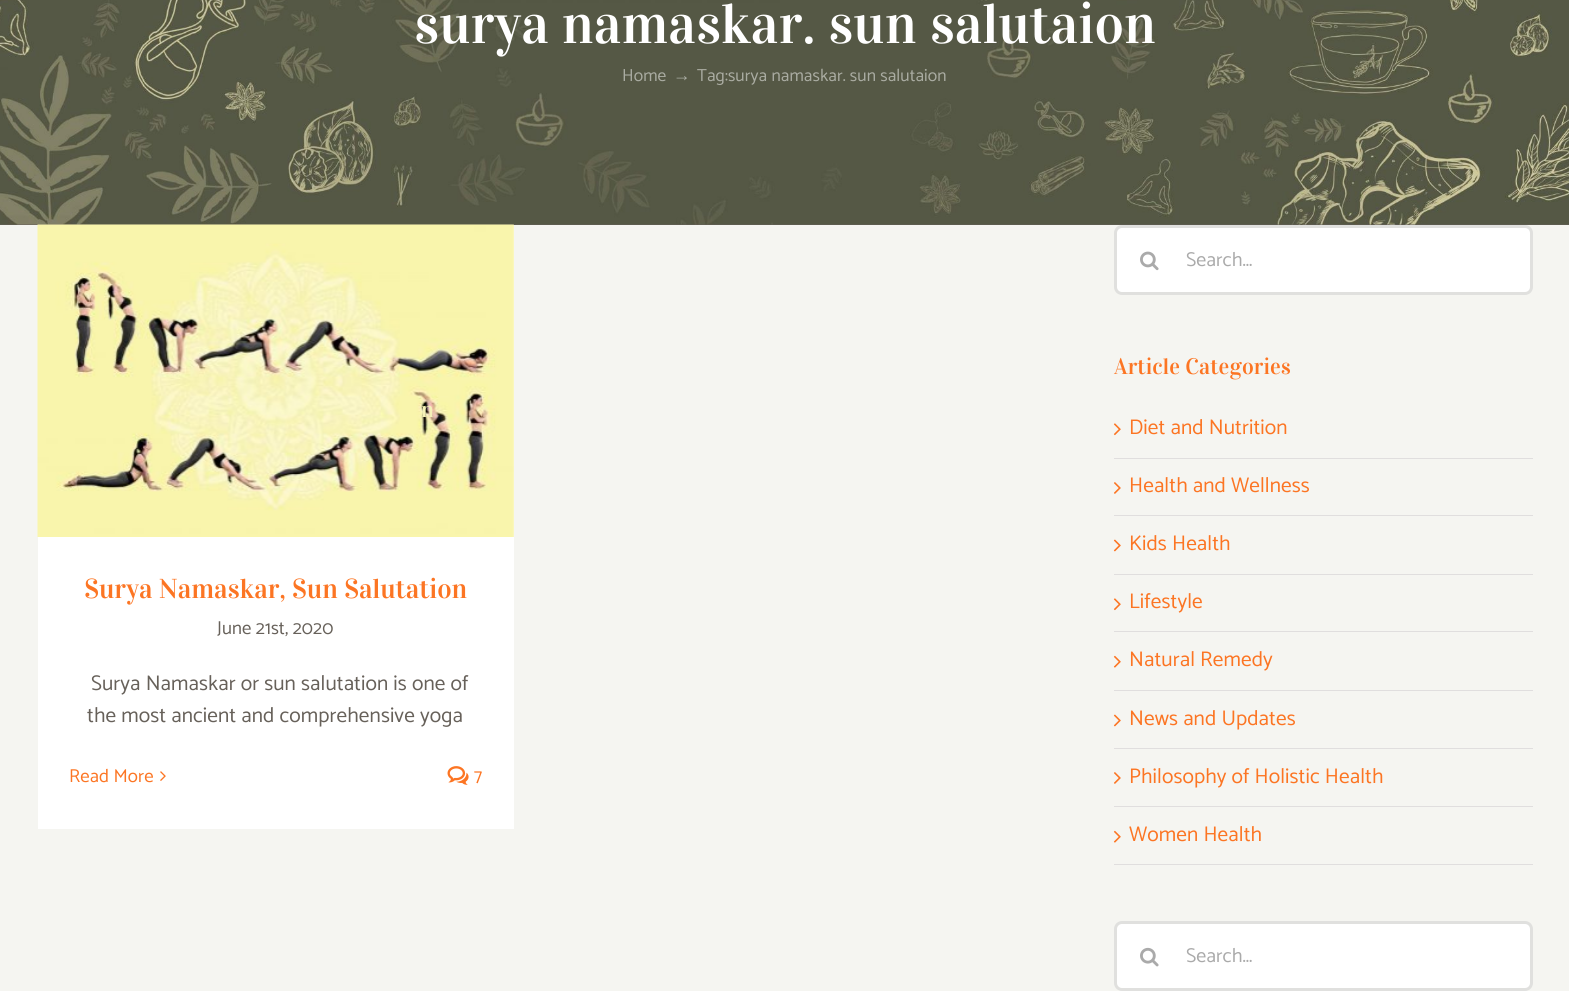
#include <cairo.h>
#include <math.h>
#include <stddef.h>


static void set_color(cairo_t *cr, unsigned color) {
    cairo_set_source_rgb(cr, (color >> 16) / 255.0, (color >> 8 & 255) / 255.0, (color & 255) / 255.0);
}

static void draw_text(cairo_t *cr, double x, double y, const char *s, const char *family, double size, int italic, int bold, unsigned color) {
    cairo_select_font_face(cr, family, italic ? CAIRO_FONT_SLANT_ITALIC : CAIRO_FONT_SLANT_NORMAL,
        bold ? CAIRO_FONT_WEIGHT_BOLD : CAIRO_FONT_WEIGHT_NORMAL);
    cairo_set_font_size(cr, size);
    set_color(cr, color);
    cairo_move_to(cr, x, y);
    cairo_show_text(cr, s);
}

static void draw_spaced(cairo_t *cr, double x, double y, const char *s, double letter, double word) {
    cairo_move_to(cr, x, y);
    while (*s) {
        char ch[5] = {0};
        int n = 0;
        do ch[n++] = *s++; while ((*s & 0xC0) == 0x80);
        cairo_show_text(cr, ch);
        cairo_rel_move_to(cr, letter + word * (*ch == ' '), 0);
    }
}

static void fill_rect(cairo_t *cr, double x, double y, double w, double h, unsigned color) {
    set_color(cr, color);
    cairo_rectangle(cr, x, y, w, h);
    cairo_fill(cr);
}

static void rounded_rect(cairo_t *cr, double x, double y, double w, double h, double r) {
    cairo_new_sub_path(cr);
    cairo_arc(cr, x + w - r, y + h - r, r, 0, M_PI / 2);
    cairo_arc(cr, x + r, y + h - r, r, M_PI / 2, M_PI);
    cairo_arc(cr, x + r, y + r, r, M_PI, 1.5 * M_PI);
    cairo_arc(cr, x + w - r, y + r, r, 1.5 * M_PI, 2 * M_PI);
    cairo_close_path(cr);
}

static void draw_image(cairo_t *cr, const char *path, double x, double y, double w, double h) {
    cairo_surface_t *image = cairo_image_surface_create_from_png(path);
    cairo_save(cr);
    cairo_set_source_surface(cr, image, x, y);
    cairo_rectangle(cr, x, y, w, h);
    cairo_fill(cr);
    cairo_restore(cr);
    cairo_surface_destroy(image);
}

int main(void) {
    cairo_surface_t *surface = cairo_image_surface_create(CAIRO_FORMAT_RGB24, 1569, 1005);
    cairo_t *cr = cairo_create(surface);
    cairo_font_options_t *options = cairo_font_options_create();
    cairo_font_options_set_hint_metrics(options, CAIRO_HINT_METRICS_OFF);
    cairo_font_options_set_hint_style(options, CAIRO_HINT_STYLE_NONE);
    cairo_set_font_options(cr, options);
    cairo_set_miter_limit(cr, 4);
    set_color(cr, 0xF5F5F1);
    cairo_paint(cr);
    fill_rect(cr, 0, 224, 1569, 1, 0x67615A);
    draw_image(cr, "assets/img1.png", 0, 0, 1569, 225);
    cairo_select_font_face(cr, "Vidaloka", CAIRO_FONT_SLANT_NORMAL, CAIRO_FONT_WEIGHT_NORMAL);
    cairo_set_font_size(cr, 56.25);
    set_color(cr, 0xFFFFFF);
    draw_spaced(cr, 414, 43, "surya namaskar. sun salutaion", 0.1, 0);
    cairo_select_font_face(cr, "Catamaran", CAIRO_FONT_SLANT_NORMAL, CAIRO_FONT_WEIGHT_NORMAL);
    cairo_set_font_size(cr, 17.5);
    set_color(cr, 0xAAACA2);
    draw_spaced(cr, 622, 81, "Home", 0.1, 0);
    cairo_select_font_face(cr, "Liberation Sans", CAIRO_FONT_SLANT_NORMAL, CAIRO_FONT_WEIGHT_NORMAL);
    draw_spaced(cr, 673, 81, "→", 0.1, 0);
    cairo_select_font_face(cr, "Catamaran", CAIRO_FONT_SLANT_NORMAL, CAIRO_FONT_WEIGHT_NORMAL);
    draw_spaced(cr, 697, 81, "Tag:surya namaskar. sun salutaion", 0.1, 0);
    fill_rect(cr, 38, 225, 476, 604, 0xFFFFFF);
    draw_image(cr, "assets/img2.png", 37, 224, 477, 313);
    cairo_select_font_face(cr, "Vidaloka", CAIRO_FONT_SLANT_NORMAL, CAIRO_FONT_WEIGHT_NORMAL);
    cairo_set_font_size(cr, 22.5);
    set_color(cr, 0xF5F1B8);
    draw_spaced(cr, 421, 417, "n", 0.1, 0);
    draw_text(cr, 84, 598, "Surya Namaskar, Sun Salutation", "Vidaloka", 27.5, 0, 0, 0xFC7523);
    cairo_select_font_face(cr, "Catamaran", CAIRO_FONT_SLANT_NORMAL, CAIRO_FONT_WEIGHT_NORMAL);
    cairo_set_font_size(cr, 18.75);
    set_color(cr, 0x67615A);
    draw_spaced(cr, 217, 634, "June 21st, 2020", 0.1, 0);
    cairo_set_font_size(cr, 21.25);
    draw_spaced(cr, 91, 690, "Surya Namaskar or sun salutation is one of", 0.1, 0);
    draw_spaced(cr, 87, 722, "the most ancient and comprehensive yoga", 0.1, 0);
    cairo_set_font_size(cr, 18.75);
    set_color(cr, 0xFC7523);
    draw_spaced(cr, 69, 782, "Read More", 0.1, 0);
    draw_image(cr, "assets/img3.png", 160, 771, 6, 10);
    draw_image(cr, "assets/img4.png", 447, 766, 22, 19);
    draw_spaced(cr, 474, 782, "7", 0.1, 0);
    set_color(cr, 0xFFFFFF);
    rounded_rect(cr, 1115.5, 226.5, 416, 67, 6.5);
    cairo_fill_preserve(cr);
    set_color(cr, 0xE0E0DE);
    cairo_set_line_width(cr, 3);
    cairo_stroke(cr);
    draw_image(cr, "assets/img5.png", 1140, 251, 19, 20);
    draw_text(cr, 1186, 266, "Search...", "Catamaran", 20, 0, 0, 0xAAAAAA);
    cairo_select_font_face(cr, "Vidaloka", CAIRO_FONT_SLANT_NORMAL, CAIRO_FONT_WEIGHT_NORMAL);
    cairo_set_font_size(cr, 22.5);
    set_color(cr, 0xFC7523);
    draw_spaced(cr, 1114, 374, "Article Categories", 0.1, 0);
    fill_rect(cr, 1114, 458, 419, 1, 0xE0DEDE);
    draw_image(cr, "assets/img6.png", 1113, 423, 8, 13);
    cairo_select_font_face(cr, "Catamaran", CAIRO_FONT_SLANT_NORMAL, CAIRO_FONT_WEIGHT_NORMAL);
    cairo_set_font_size(cr, 21.25);
    set_color(cr, 0xFC7523);
    draw_spaced(cr, 1129, 434, "Diet and Nutrition", 0.1, 0);
    fill_rect(cr, 1114, 515, 419, 1, 0xE0DEDE);
    draw_image(cr, "assets/img7.png", 1114, 482, 7, 12);
    set_color(cr, 0xFC7523);
    draw_spaced(cr, 1129, 492, "Health and Wellness", 0.1, 0);
    fill_rect(cr, 1114, 574, 419, 1, 0xE0DEDE);
    draw_image(cr, "assets/img8.png", 1113, 539, 8, 13);
    set_color(cr, 0xFC7523);
    draw_spaced(cr, 1129, 550, "Kids Health", 0.1, 0);
    fill_rect(cr, 1114, 631, 419, 1, 0xE0DEDE);
    draw_image(cr, "assets/img6.png", 1113, 598, 8, 13);
    set_color(cr, 0xFC7523);
    draw_spaced(cr, 1129, 608, "Lifestyle", 0.1, 0);
    fill_rect(cr, 1114, 690, 419, 1, 0xE0DEDE);
    draw_image(cr, "assets/img9.png", 1113, 655, 8, 13);
    set_color(cr, 0xFC7523);
    draw_spaced(cr, 1129, 666, "Natural Remedy", 0.1, 0);
    fill_rect(cr, 1114, 748, 419, 1, 0xE0DEDE);
    draw_image(cr, "assets/img8.png", 1113, 714, 8, 13);
    set_color(cr, 0xFC7523);
    draw_spaced(cr, 1129, 725, "News and Updates", 0.1, 0);
    fill_rect(cr, 1114, 806, 419, 1, 0xE0DEDE);
    draw_image(cr, "assets/img7.png", 1114, 772, 7, 12);
    set_color(cr, 0xFC7523);
    draw_spaced(cr, 1129, 783, "Philosophy of Holistic Health", 0.1, 0);
    fill_rect(cr, 1114, 864, 419, 1, 0xE0DEDE);
    draw_image(cr, "assets/img9.png", 1113, 830, 8, 13);
    set_color(cr, 0xFC7523);
    draw_spaced(cr, 1129, 841, "Women Health", 0.1, 0);
    set_color(cr, 0xFFFFFF);
    rounded_rect(cr, 1115.5, 922.5, 416, 67, 6.5);
    cairo_fill_preserve(cr);
    set_color(cr, 0xE0E0DE);
    cairo_stroke(cr);
    draw_image(cr, "assets/img10.png", 1140, 947, 19, 20);
    draw_text(cr, 1186, 962, "Search...", "Catamaran", 20, 0, 0, 0xAAAAAA);
    fill_rect(cr, 0, 991, 1569, 14, 0xFFFFFF);
    cairo_surface_write_to_png(surface, "output.png");
    cairo_font_options_destroy(options);
    cairo_destroy(cr);
    cairo_surface_destroy(surface);
    return 0;
}
